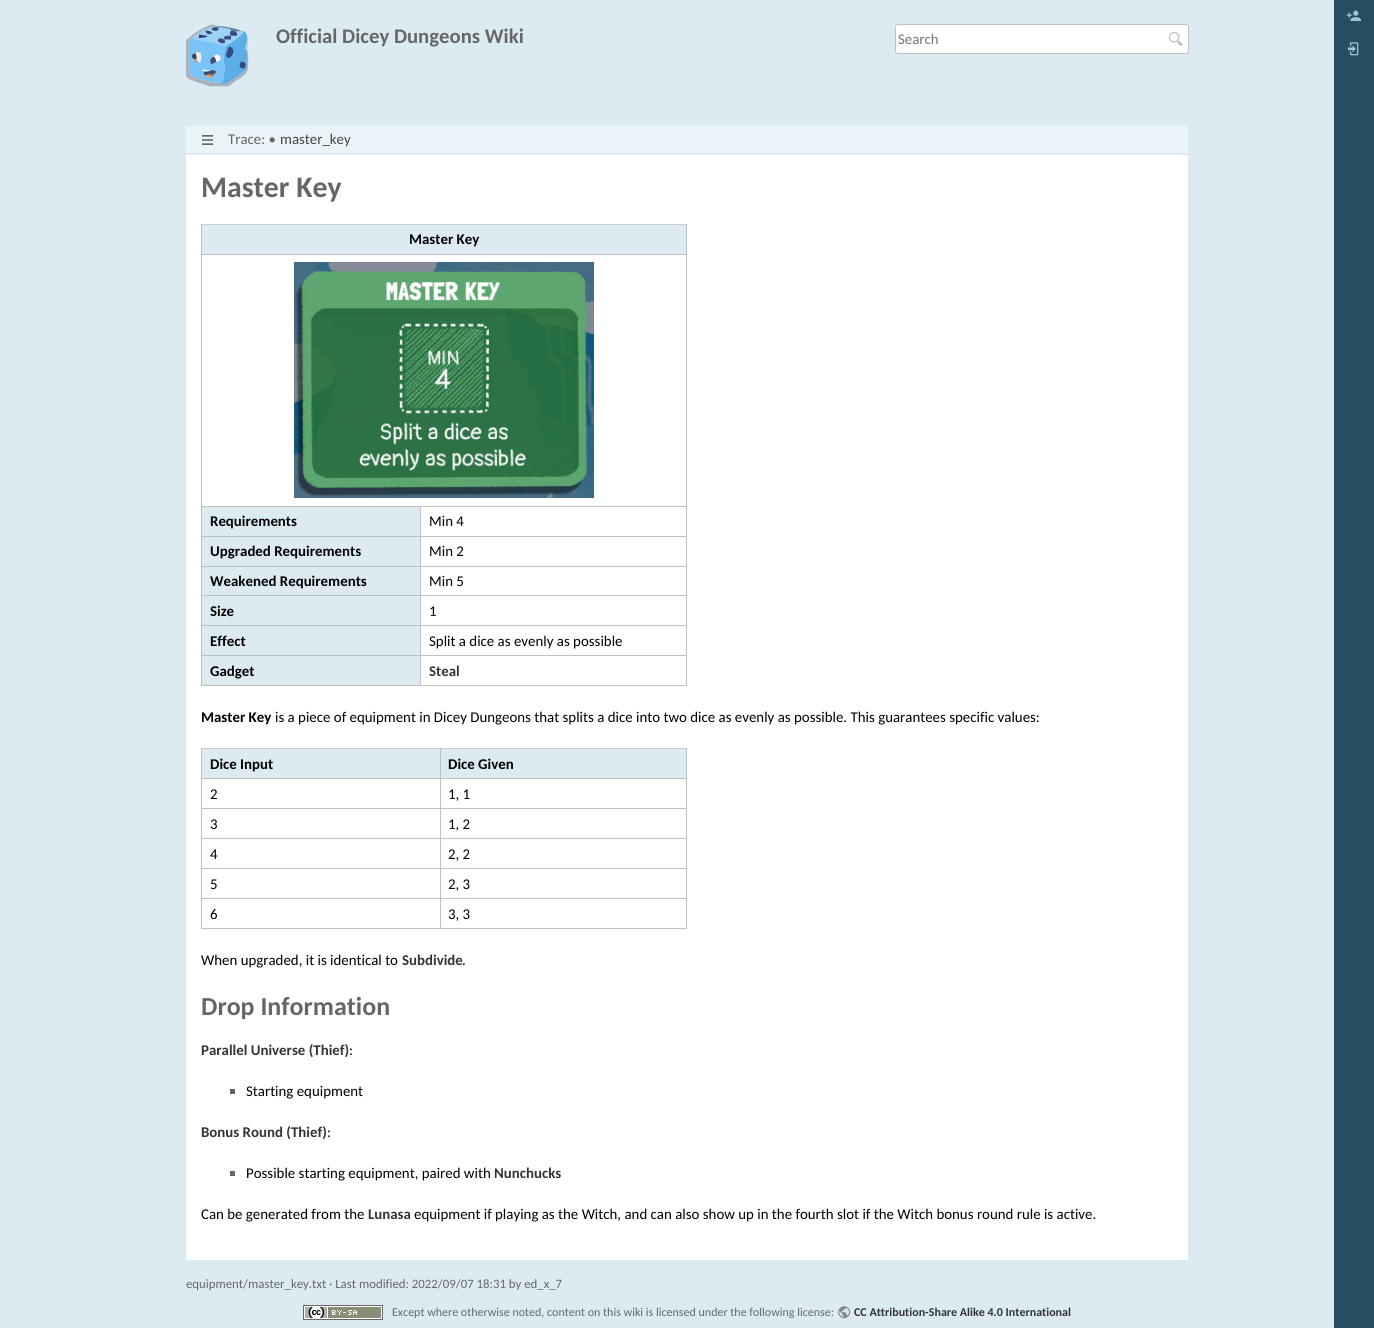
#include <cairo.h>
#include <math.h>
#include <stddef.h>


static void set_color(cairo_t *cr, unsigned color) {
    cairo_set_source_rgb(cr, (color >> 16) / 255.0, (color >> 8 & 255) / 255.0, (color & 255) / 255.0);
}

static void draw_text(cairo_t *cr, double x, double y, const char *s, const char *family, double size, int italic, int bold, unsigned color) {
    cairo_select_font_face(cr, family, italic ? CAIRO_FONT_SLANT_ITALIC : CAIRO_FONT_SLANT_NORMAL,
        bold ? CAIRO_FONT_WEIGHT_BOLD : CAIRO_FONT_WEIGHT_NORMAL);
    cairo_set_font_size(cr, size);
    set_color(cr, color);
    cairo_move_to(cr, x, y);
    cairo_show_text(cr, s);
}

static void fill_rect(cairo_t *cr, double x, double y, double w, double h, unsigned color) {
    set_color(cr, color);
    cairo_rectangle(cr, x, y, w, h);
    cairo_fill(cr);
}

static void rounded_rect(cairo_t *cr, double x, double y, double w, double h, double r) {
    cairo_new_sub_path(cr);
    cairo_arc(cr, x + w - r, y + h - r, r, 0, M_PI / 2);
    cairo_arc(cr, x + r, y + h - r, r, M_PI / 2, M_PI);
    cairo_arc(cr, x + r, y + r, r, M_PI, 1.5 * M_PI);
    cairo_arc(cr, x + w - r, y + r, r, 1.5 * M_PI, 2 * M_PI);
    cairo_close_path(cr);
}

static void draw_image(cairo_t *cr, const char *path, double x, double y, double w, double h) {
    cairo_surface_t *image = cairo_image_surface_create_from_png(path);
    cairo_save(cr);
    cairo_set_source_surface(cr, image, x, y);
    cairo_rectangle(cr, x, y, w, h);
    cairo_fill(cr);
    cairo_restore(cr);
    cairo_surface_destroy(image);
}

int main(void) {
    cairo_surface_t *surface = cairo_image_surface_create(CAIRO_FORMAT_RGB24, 1374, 1328);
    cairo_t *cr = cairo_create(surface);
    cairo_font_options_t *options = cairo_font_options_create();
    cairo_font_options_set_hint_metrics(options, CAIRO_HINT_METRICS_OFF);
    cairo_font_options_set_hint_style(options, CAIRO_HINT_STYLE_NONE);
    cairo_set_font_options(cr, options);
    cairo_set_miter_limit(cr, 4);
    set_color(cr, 0xDCEBF2);
    cairo_paint(cr);
    draw_image(cr, "assets/img1.png", 186, 24, 63, 63);
    draw_text(cr, 276, 43, "Official Dicey Dungeons Wiki", "Carlito", 20.75, 0, 1, 0x666666);
    set_color(cr, 0xFFFFFF);
    rounded_rect(cr, 895.5, 24.5, 293, 29, 2.5);
    cairo_fill_preserve(cr);
    set_color(cr, 0xC0C0C0);
    cairo_set_line_width(cr, 1);
    cairo_stroke(cr);
    draw_text(cr, 898, 44, "Search", "Carlito", 14.88, 0, 0, 0x757575);
    draw_image(cr, "assets/img2.png", 1169, 32, 14, 14);
    fill_rect(cr, 186, 126, 1002, 27, 0xEAF3F7);
    draw_image(cr, "assets/img3.png", 202, 135, 11, 10);
    draw_text(cr, 228, 144, "Trace: •", "Carlito", 14.88, 0, 0, 0x666666);
    draw_text(cr, 280, 144, "master_key", "Carlito", 14.88, 0, 0, 0x444444);
    fill_rect(cr, 186, 155, 1002, 1105, 0xFFFFFF);
    draw_text(cr, 201, 197, "Master Key", "Carlito", 29.75, 0, 1, 0x666666);
    fill_rect(cr, 686, 255, 1, 431, 0xC0C0C0);
    fill_rect(cr, 201, 685, 486, 1, 0xC0C0C0);
    fill_rect(cr, 201, 255, 1, 431, 0xC0C0C0);
    fill_rect(cr, 202, 225, 484, 29, 0xDCEBF2);
    fill_rect(cr, 201, 224, 486, 1, 0xCCCCCC);
    fill_rect(cr, 201, 254, 486, 1, 0xC0C0C0);
    fill_rect(cr, 686, 224, 1, 31, 0xC0C0C0);
    fill_rect(cr, 201, 224, 1, 31, 0xC0C0C0);
    draw_text(cr, 409, 244, "Master Key", "Carlito", 14.88, 0, 1, 0x000000);
    draw_image(cr, "assets/img4.png", 294, 262, 300, 236);
    fill_rect(cr, 202, 507, 218, 29, 0xDCEBF2);
    fill_rect(cr, 420, 506, 267, 1, 0xC0C0C0);
    fill_rect(cr, 420, 536, 267, 1, 0xC0C0C0);
    fill_rect(cr, 420, 566, 267, 1, 0xC0C0C0);
    fill_rect(cr, 420, 595, 267, 1, 0xC0C0C0);
    fill_rect(cr, 420, 625, 267, 1, 0xC0C0C0);
    fill_rect(cr, 420, 655, 267, 1, 0xC0C0C0);
    fill_rect(cr, 420, 655, 1, 31, 0xC0C0C0);
    fill_rect(cr, 201, 655, 220, 1, 0xC0C0C0);
    fill_rect(cr, 420, 625, 1, 31, 0xC0C0C0);
    fill_rect(cr, 201, 625, 220, 1, 0xC0C0C0);
    fill_rect(cr, 420, 595, 1, 31, 0xC0C0C0);
    fill_rect(cr, 201, 595, 220, 1, 0xC0C0C0);
    fill_rect(cr, 420, 566, 1, 30, 0xC0C0C0);
    fill_rect(cr, 201, 566, 220, 1, 0xC0C0C0);
    fill_rect(cr, 420, 536, 1, 31, 0xC0C0C0);
    fill_rect(cr, 201, 536, 220, 1, 0xC0C0C0);
    fill_rect(cr, 420, 506, 1, 31, 0xC0C0C0);
    fill_rect(cr, 201, 506, 220, 1, 0xC0C0C0);
    draw_text(cr, 210, 526, "Requirements", "Carlito", 14.88, 0, 1, 0x000000);
    draw_text(cr, 429, 526, "Min 4", "Carlito", 14.88, 0, 0, 0x000000);
    fill_rect(cr, 202, 537, 218, 29, 0xDCEBF2);
    draw_text(cr, 210, 556, "Upgraded Requirements", "Carlito", 14.88, 0, 1, 0x000000);
    draw_text(cr, 429, 556, "Min 2", "Carlito", 14.88, 0, 0, 0x000000);
    fill_rect(cr, 202, 567, 218, 28, 0xDCEBF2);
    draw_text(cr, 210, 586, "Weakened Requirements", "Carlito", 14.88, 0, 1, 0x000000);
    draw_text(cr, 429, 586, "Min 5", "Carlito", 14.88, 0, 0, 0x000000);
    fill_rect(cr, 202, 596, 218, 29, 0xDCEBF2);
    draw_text(cr, 210, 616, "Size", "Carlito", 14.88, 0, 1, 0x000000);
    draw_text(cr, 429, 616, "1", "Carlito", 14.88, 0, 0, 0x000000);
    fill_rect(cr, 202, 626, 218, 29, 0xDCEBF2);
    draw_text(cr, 210, 646, "Effect", "Carlito", 14.88, 0, 1, 0x000000);
    draw_text(cr, 429, 646, "Split a dice as evenly as possible", "Carlito", 14.88, 0, 0, 0x000000);
    fill_rect(cr, 202, 656, 218, 29, 0xDCEBF2);
    draw_text(cr, 210, 676, "Gadget", "Carlito", 14.88, 0, 1, 0x000000);
    draw_text(cr, 429, 676, "Steal", "Carlito", 14.88, 0, 1, 0x333333);
    draw_text(cr, 201, 722, "Master Key", "Carlito", 14.88, 0, 1, 0x000000);
    draw_text(cr, 275, 722, "is a piece of equipment in Dicey Dungeons that splits a dice into two dice as evenly as possible. This guarantees specific values:", "Carlito", 14.88, 0, 0, 0x000000);
    fill_rect(cr, 686, 779, 1, 150, 0xC0C0C0);
    fill_rect(cr, 201, 928, 486, 1, 0xC0C0C0);
    fill_rect(cr, 201, 779, 1, 150, 0xC0C0C0);
    fill_rect(cr, 202, 749, 238, 29, 0xDCEBF2);
    fill_rect(cr, 201, 748, 486, 1, 0xCCCCCC);
    fill_rect(cr, 440, 778, 247, 1, 0xC0C0C0);
    fill_rect(cr, 440, 808, 247, 1, 0xC0C0C0);
    fill_rect(cr, 440, 838, 247, 1, 0xC0C0C0);
    fill_rect(cr, 440, 868, 247, 1, 0xC0C0C0);
    fill_rect(cr, 440, 898, 247, 1, 0xC0C0C0);
    fill_rect(cr, 440, 898, 1, 31, 0xC0C0C0);
    fill_rect(cr, 201, 898, 240, 1, 0xC0C0C0);
    fill_rect(cr, 440, 868, 1, 31, 0xC0C0C0);
    fill_rect(cr, 201, 868, 240, 1, 0xC0C0C0);
    fill_rect(cr, 440, 838, 1, 31, 0xC0C0C0);
    fill_rect(cr, 201, 838, 240, 1, 0xC0C0C0);
    fill_rect(cr, 440, 808, 1, 31, 0xC0C0C0);
    fill_rect(cr, 201, 808, 240, 1, 0xC0C0C0);
    fill_rect(cr, 440, 778, 1, 31, 0xC0C0C0);
    fill_rect(cr, 201, 778, 240, 1, 0xC0C0C0);
    fill_rect(cr, 440, 748, 1, 31, 0xC0C0C0);
    fill_rect(cr, 201, 748, 1, 31, 0xC0C0C0);
    draw_text(cr, 210, 769, "Dice Input", "Carlito", 14.88, 0, 1, 0x000000);
    fill_rect(cr, 441, 749, 245, 29, 0xDCEBF2);
    fill_rect(cr, 686, 748, 1, 31, 0xC0C0C0);
    draw_text(cr, 448, 769, "Dice Given", "Carlito", 14.88, 0, 1, 0x000000);
    draw_text(cr, 210, 799, "2", "Carlito", 14.88, 0, 0, 0x000000);
    draw_text(cr, 448, 799, "1, 1", "Carlito", 14.88, 0, 0, 0x000000);
    draw_text(cr, 210, 829, "3", "Carlito", 14.88, 0, 0, 0x000000);
    draw_text(cr, 448, 829, "1, 2", "Carlito", 14.88, 0, 0, 0x000000);
    draw_text(cr, 210, 859, "4", "Carlito", 14.88, 0, 0, 0x000000);
    draw_text(cr, 448, 859, "2, 2", "Carlito", 14.88, 0, 0, 0x000000);
    draw_text(cr, 210, 889, "5", "Carlito", 14.88, 0, 0, 0x000000);
    draw_text(cr, 448, 889, "2, 3", "Carlito", 14.88, 0, 0, 0x000000);
    draw_text(cr, 210, 919, "6", "Carlito", 14.88, 0, 0, 0x000000);
    draw_text(cr, 448, 919, "3, 3", "Carlito", 14.88, 0, 0, 0x000000);
    draw_text(cr, 201, 965, "When upgraded, it is identical to", "Carlito", 14.88, 0, 0, 0x000000);
    draw_text(cr, 402, 965, "Subdivide", "Carlito", 14.88, 0, 1, 0x333333);
    draw_text(cr, 462, 965, ".", "Carlito", 14.88, 0, 0, 0x000000);
    draw_text(cr, 201, 1015, "Drop Information", "Carlito", 26, 0, 1, 0x666666);
    draw_text(cr, 201, 1055, "Parallel Universe (Thief)", "Carlito", 14.88, 0, 1, 0x333333);
    draw_text(cr, 349, 1055, ":", "Carlito", 14.88, 0, 0, 0x000000);
    fill_rect(cr, 230, 1089, 5, 5, 0x666666);
    draw_text(cr, 246, 1096, "Starting equipment", "Carlito", 14.88, 0, 0, 0x000000);
    draw_text(cr, 201, 1137, "Bonus Round (Thief)", "Carlito", 14.88, 0, 1, 0x333333);
    draw_text(cr, 327, 1137, ":", "Carlito", 14.88, 0, 0, 0x000000);
    fill_rect(cr, 230, 1171, 5, 5, 0x666666);
    draw_text(cr, 246, 1178, "Possible starting equipment, paired with", "Carlito", 14.88, 0, 0, 0x000000);
    draw_text(cr, 494, 1178, "Nunchucks", "Carlito", 14.88, 0, 1, 0x333333);
    draw_text(cr, 201, 1219, "Can be generated from the", "Carlito", 14.88, 0, 0, 0x000000);
    draw_text(cr, 368, 1219, "Lunasa", "Carlito", 14.88, 0, 1, 0x333333);
    draw_text(cr, 414, 1219, "equipment if playing as the Witch, and can also show up in the fourth slot if the Witch bonus round rule is active.", "Carlito", 14.88, 0, 0, 0x000000);
    fill_rect(cr, 1334, 0, 40, 1328, 0x264D61);
    draw_image(cr, "assets/img5.png", 1346, 10, 15, 11);
    draw_image(cr, "assets/img6.png", 1347, 42, 12, 14);
    draw_text(cr, 186, 1288, "equipment/master_key.txt · Last modified: 2022/09/07 18:31 by ed_x_7", "Carlito", 12.8, 0, 0, 0x666666);
    draw_image(cr, "assets/img7.png", 303, 1305, 80, 15);
    draw_text(cr, 392, 1316, "Except where otherwise noted, content on this wiki is licensed under the following license:", "Carlito", 12, 0, 0, 0x666666);
    draw_image(cr, "assets/img8.png", 838, 1306, 13, 13);
    draw_text(cr, 854, 1316, "CC Attribution-Share Alike 4.0 International", "Carlito", 12, 0, 1, 0x333333);
    cairo_surface_write_to_png(surface, "output.png");
    cairo_font_options_destroy(options);
    cairo_destroy(cr);
    cairo_surface_destroy(surface);
    return 0;
}
